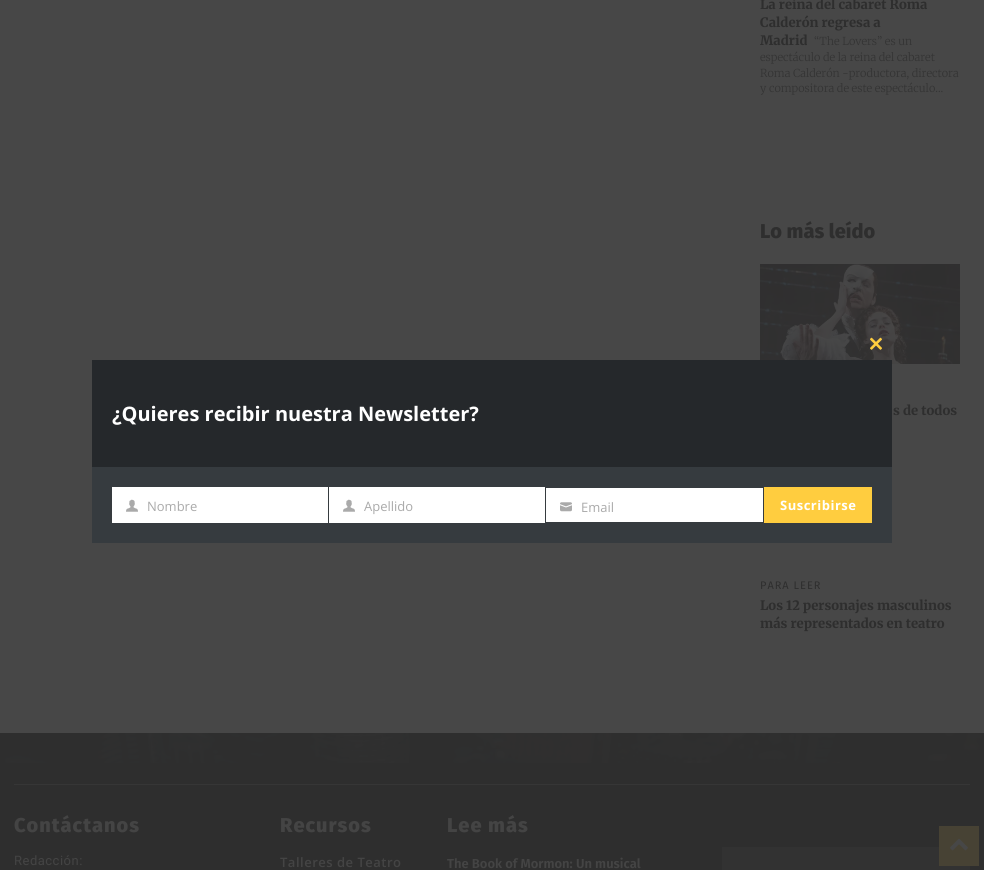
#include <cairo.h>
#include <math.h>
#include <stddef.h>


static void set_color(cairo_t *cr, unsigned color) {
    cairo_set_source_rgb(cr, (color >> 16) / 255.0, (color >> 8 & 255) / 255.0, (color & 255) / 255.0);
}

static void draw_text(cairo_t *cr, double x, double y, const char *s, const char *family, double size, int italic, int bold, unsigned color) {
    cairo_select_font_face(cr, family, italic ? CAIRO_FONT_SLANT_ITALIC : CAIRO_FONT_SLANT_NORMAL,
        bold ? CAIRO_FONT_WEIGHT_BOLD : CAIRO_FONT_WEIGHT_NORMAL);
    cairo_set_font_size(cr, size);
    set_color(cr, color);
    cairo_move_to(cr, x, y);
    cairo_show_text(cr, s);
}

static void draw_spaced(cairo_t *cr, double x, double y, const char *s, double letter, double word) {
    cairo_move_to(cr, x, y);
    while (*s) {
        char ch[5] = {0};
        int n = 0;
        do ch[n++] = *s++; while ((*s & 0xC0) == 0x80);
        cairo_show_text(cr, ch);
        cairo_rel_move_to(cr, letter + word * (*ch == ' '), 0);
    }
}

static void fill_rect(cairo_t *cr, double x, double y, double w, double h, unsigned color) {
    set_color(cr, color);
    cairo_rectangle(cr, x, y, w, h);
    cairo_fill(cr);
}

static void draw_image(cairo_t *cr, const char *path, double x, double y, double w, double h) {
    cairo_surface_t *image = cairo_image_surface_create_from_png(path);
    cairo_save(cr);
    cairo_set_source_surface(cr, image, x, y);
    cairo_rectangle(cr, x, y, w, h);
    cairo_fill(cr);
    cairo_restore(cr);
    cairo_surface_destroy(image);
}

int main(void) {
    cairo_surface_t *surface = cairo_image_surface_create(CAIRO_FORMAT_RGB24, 984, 870);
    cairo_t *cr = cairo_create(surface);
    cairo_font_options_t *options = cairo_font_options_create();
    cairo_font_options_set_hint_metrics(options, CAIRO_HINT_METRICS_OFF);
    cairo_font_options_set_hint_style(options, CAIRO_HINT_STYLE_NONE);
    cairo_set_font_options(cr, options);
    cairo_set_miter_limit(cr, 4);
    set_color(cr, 0x474747);
    cairo_paint(cr);
    draw_text(cr, 760, 9, "La reina del cabaret Roma", "Merriweather ExtraBold", 13, 0, 0, 0x2E2E2E);
    draw_text(cr, 760, 27, "Calderón regresa a", "Merriweather ExtraBold", 13, 0, 0, 0x2E2E2E);
    draw_text(cr, 760, 45, "Madrid", "Merriweather ExtraBold", 13, 0, 0, 0x2E2E2E);
    draw_text(cr, 814, 45, "“The Lovers” es un", "Merriweather Light", 11, 0, 0, 0x343434);
    draw_text(cr, 760, 61, "espectáculo de la reina del cabaret", "Merriweather Light", 11, 0, 0, 0x343434);
    draw_text(cr, 760, 77, "Roma Calderón -productora, directora", "Merriweather Light", 11, 0, 0, 0x343434);
    draw_text(cr, 760, 92, "y compositora de este espectáculo...", "Merriweather Light", 11, 0, 0, 0x343434);
    draw_text(cr, 760, 238, "Lo más leído", "Fira Sans ExtraBold", 20, 0, 0, 0x2E2E2E);
    draw_image(cr, "assets/img1.png", 760, 264, 200, 100);
    draw_text(cr, 893, 415, "s de todos", "Merriweather ExtraBold", 13, 0, 0, 0x2E2E2E);
    cairo_select_font_face(cr, "Fira Sans", CAIRO_FONT_SLANT_NORMAL, CAIRO_FONT_WEIGHT_NORMAL);
    cairo_set_font_size(cr, 11);
    draw_spaced(cr, 760, 589, "PARA LEER", 1, 0);
    draw_text(cr, 760, 610, "Los 12 personajes masculinos", "Merriweather ExtraBold", 13, 0, 0, 0x2E2E2E);
    draw_text(cr, 760, 628, "más representados en teatro", "Merriweather ExtraBold", 13, 0, 0, 0x2E2E2E);
    fill_rect(cr, 0, 733, 984, 137, 0x2E2E2E);
    draw_image(cr, "assets/img2.png", 0, 733, 984, 30);
    fill_rect(cr, 14, 784, 956, 1, 0x363636);
    cairo_select_font_face(cr, "Fira Sans ExtraBold", CAIRO_FONT_SLANT_NORMAL, CAIRO_FONT_WEIGHT_NORMAL);
    cairo_set_font_size(cr, 20);
    set_color(cr, 0x444444);
    draw_spaced(cr, 14, 832, "Contáctanos", 1, 0);
    cairo_select_font_face(cr, "Roboto", CAIRO_FONT_SLANT_NORMAL, CAIRO_FONT_WEIGHT_NORMAL);
    cairo_set_font_size(cr, 13);
    draw_spaced(cr, 14, 865, "Redacción:", 0.5, 0);
    cairo_select_font_face(cr, "Fira Sans ExtraBold", CAIRO_FONT_SLANT_NORMAL, CAIRO_FONT_WEIGHT_NORMAL);
    cairo_set_font_size(cr, 20);
    draw_spaced(cr, 280, 832, "Recursos", 1, 0);
    cairo_select_font_face(cr, "Open Sans SemiBold", CAIRO_FONT_SLANT_NORMAL, CAIRO_FONT_WEIGHT_NORMAL);
    cairo_set_font_size(cr, 13);
    draw_spaced(cr, 280, 867, "Talleres de Teatro", 0.5, 0);
    cairo_select_font_face(cr, "Fira Sans ExtraBold", CAIRO_FONT_SLANT_NORMAL, CAIRO_FONT_WEIGHT_NORMAL);
    cairo_set_font_size(cr, 20);
    draw_spaced(cr, 447, 832, "Lee más", 1, 0);
    draw_text(cr, 447, 868, "The Book of Mormon: Un musical", "Fira Sans SemiBold", 13, 0, 0, 0x444444);
    fill_rect(cr, 722, 847, 248, 23, 0x323232);
    draw_image(cr, "assets/img3.png", 870, 337, 12, 13);
    fill_rect(cr, 92, 360, 800, 107, 0x25282B);
    draw_text(cr, 112, 421, "¿Quieres recibir nuestra Newsletter?", "Open Sans", 20, 0, 1, 0xFFFFFF);
    fill_rect(cr, 92, 467, 800, 76, 0x363B3F);
    fill_rect(cr, 112, 487, 216, 36, 0xFFFFFF);
    draw_image(cr, "assets/img4.png", 126, 499, 12, 13);
    draw_text(cr, 147, 511, "Nombre", "Open Sans", 13, 0, 0, 0xAAAAAA);
    fill_rect(cr, 329, 487, 216, 36, 0xFFFFFF);
    draw_image(cr, "assets/img4.png", 343, 499, 12, 13);
    draw_text(cr, 364, 511, "Apellido", "Open Sans", 13, 0, 0, 0xAAAAAA);
    fill_rect(cr, 546, 488, 217, 34, 0xFFFFFF);
    draw_image(cr, "assets/img5.png", 560, 502, 12, 10);
    draw_text(cr, 581, 512, "Email", "Open Sans", 13, 0, 0, 0xAAAAAA);
    fill_rect(cr, 764, 487, 108, 36, 0xFFCD3F);
    cairo_select_font_face(cr, "Open Sans", CAIRO_FONT_SLANT_NORMAL, CAIRO_FONT_WEIGHT_BOLD);
    set_color(cr, 0xFFFFFF);
    draw_spaced(cr, 780, 510, "Suscribirse", 0.5, 0);
    fill_rect(cr, 939, 826, 40, 40, 0x474234);
    draw_image(cr, "assets/img6.png", 950, 838, 18, 13);
    cairo_surface_write_to_png(surface, "output.png");
    cairo_font_options_destroy(options);
    cairo_destroy(cr);
    cairo_surface_destroy(surface);
    return 0;
}
